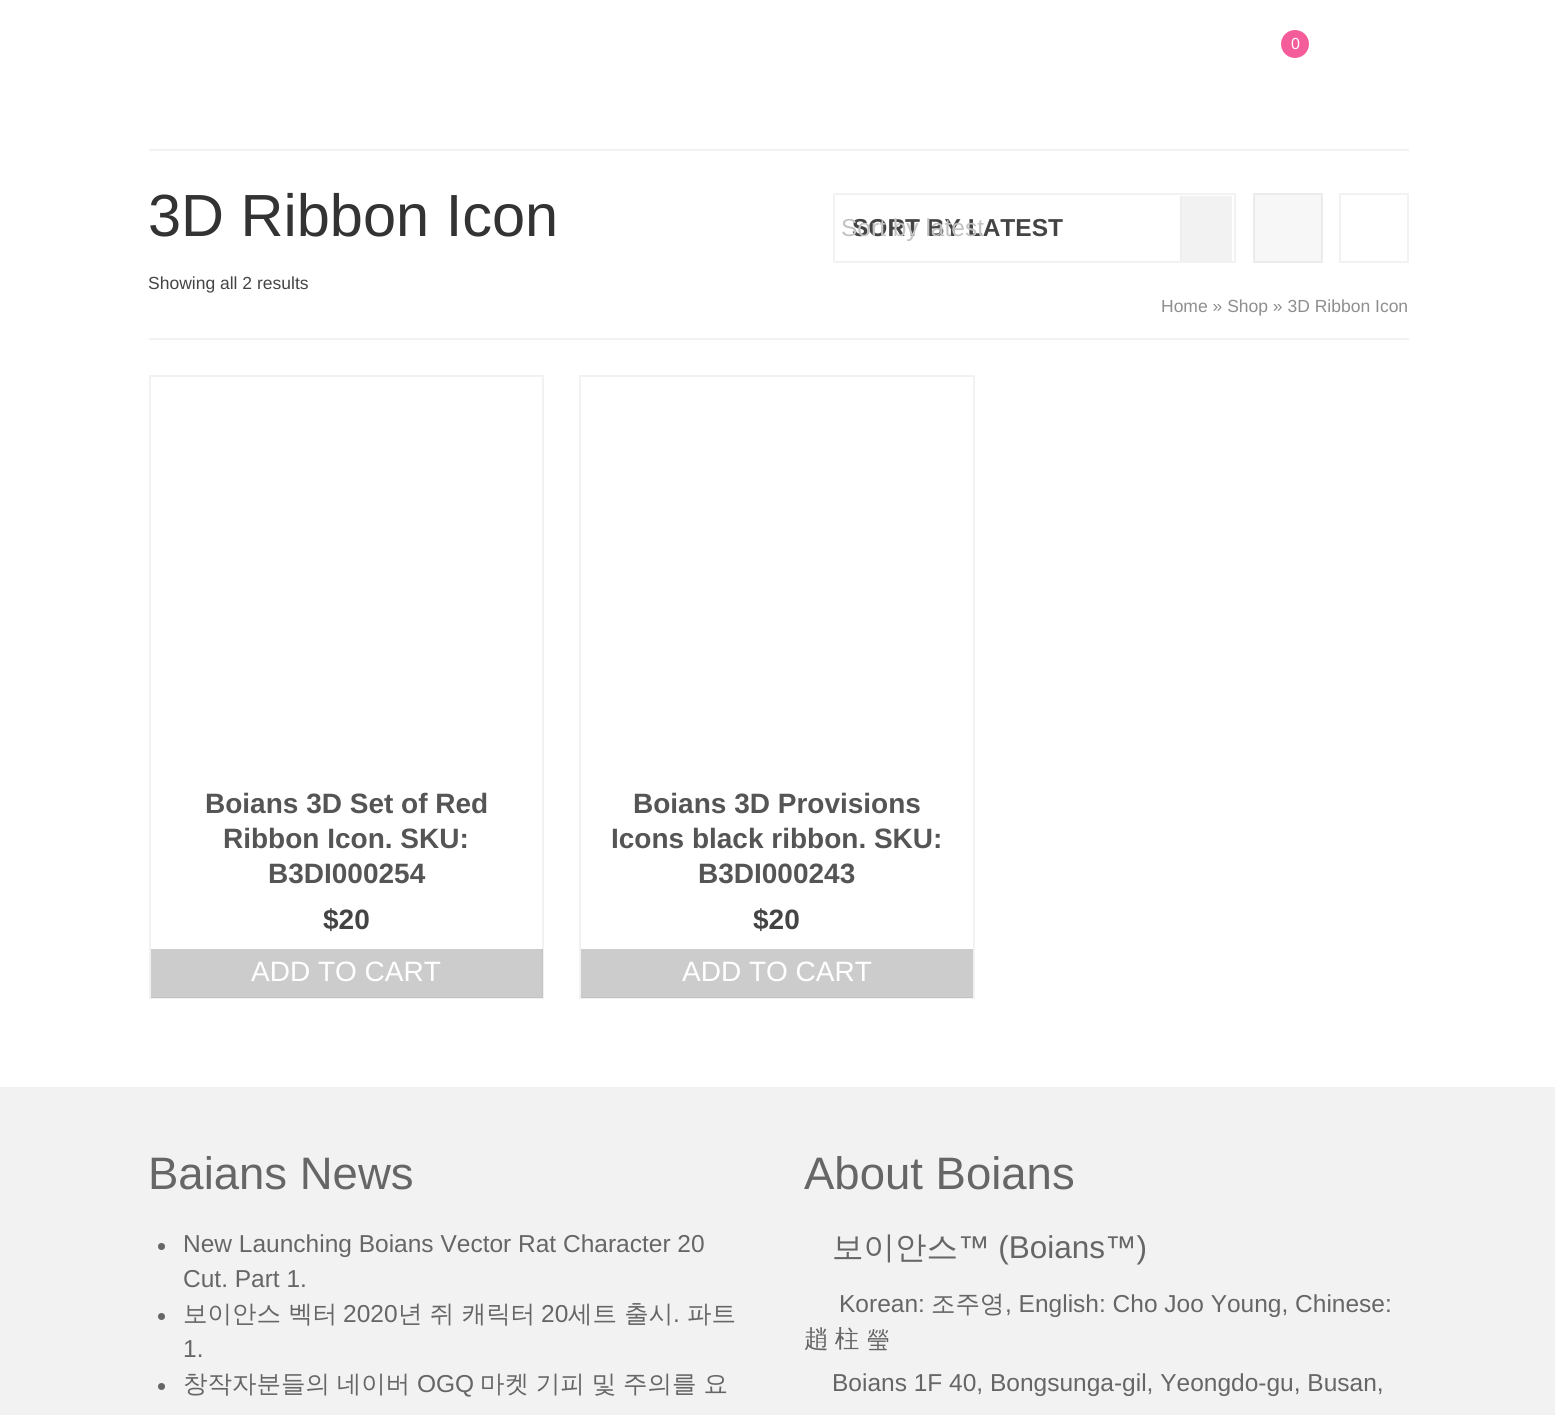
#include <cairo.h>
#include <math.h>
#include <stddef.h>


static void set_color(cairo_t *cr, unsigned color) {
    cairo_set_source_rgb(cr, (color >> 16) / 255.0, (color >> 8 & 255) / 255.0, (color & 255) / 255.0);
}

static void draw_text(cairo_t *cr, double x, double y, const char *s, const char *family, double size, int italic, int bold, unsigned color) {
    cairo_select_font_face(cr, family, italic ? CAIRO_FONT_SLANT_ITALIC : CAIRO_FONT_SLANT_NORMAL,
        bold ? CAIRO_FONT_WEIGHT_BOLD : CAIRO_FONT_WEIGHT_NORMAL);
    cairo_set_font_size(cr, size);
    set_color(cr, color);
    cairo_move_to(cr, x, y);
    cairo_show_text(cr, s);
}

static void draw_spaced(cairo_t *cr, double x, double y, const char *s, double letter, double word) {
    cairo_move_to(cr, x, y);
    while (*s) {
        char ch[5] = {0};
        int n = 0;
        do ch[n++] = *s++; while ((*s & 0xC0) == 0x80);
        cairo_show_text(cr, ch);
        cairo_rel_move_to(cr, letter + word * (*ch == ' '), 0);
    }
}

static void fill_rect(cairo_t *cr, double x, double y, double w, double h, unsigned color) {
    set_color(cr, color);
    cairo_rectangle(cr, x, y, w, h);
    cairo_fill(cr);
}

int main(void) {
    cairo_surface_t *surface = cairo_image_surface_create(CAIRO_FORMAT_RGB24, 1555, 1415);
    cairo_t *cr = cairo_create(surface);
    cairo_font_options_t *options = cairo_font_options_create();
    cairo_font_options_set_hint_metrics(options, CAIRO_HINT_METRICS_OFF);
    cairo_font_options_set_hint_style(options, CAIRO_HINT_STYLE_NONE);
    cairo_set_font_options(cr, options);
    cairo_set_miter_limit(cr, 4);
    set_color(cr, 0xFFFFFF);
    cairo_paint(cr);
    set_color(cr, 0xF45D9A);
    cairo_arc(cr, 1295, 44, 14, 0, 2 * M_PI);
    cairo_fill(cr);
    draw_text(cr, 1291, 49, "0", "Liberation Sans", 16, 0, 0, 0xFFFFFF);
    fill_rect(cr, 149, 149, 1260, 2, 0xF2F2F2);
    fill_rect(cr, 149, 338, 1260, 2, 0xF2F2F2);
    draw_text(cr, 148, 236, "3D Ribbon Icon", "Liberation Sans", 59.5, 0, 0, 0x333333);
    draw_text(cr, 148, 289, "Showing all 2 results", "Liberation Sans", 17.5, 0, 0, 0x444444);
    cairo_rectangle(cr, 834, 194, 401, 68);
    set_color(cr, 0xF2F2F2);
    cairo_stroke(cr);
    draw_text(cr, 852, 236, "SORT BY LATEST", "Liberation Sans", 24.5, 0, 1, 0x444444);
    draw_text(cr, 841, 236, "Sort by latest", "Liberation Sans", 24.5, 0, 0, 0xC3C3C3);
    fill_rect(cr, 1182, 196, 50, 65, 0xF2F2F2);
    fill_rect(cr, 1180, 196, 2, 65, 0xEEEEEE);
    set_color(cr, 0xF7F7F7);
    cairo_rectangle(cr, 1254, 194, 68, 68);
    cairo_fill_preserve(cr);
    set_color(cr, 0xEBEBEB);
    cairo_stroke(cr);
    cairo_rectangle(cr, 1340, 194, 68, 68);
    set_color(cr, 0xF2F2F2);
    cairo_stroke(cr);
    draw_text(cr, 1161, 312, "Home » Shop » 3D Ribbon Icon", "Liberation Sans", 17.5, 0, 0, 0x8E8E8E);
    cairo_rectangle(cr, 150, 376, 393, 622);
    set_color(cr, 0xF2F2F2);
    cairo_stroke(cr);
    draw_text(cr, 205, 813, "Boians 3D Set of Red", "Liberation Sans", 28, 0, 1, 0x555555);
    draw_text(cr, 223, 848, "Ribbon Icon. SKU:", "Liberation Sans", 28, 0, 1, 0x555555);
    draw_text(cr, 268, 883, "B3DI000254", "Liberation Sans", 28, 0, 1, 0x555555);
    draw_text(cr, 323, 929, "$20", "Liberation Sans", 28, 0, 1, 0x444444);
    cairo_set_source_rgba(cr, 0, 0, 0, 0.2);
    cairo_rectangle(cr, 151, 949, 392, 49);
    cairo_fill(cr);
    draw_text(cr, 251, 981, "ADD TO CART", "Liberation Sans", 28, 0, 0, 0xFFFFFF);
    cairo_rectangle(cr, 580, 376, 394, 622);
    set_color(cr, 0xF2F2F2);
    cairo_stroke(cr);
    draw_text(cr, 633, 813, "Boians 3D Provisions", "Liberation Sans", 28, 0, 1, 0x555555);
    draw_text(cr, 611, 848, "Icons black ribbon. SKU:", "Liberation Sans", 28, 0, 1, 0x555555);
    draw_text(cr, 698, 883, "B3DI000243", "Liberation Sans", 28, 0, 1, 0x555555);
    draw_text(cr, 753, 929, "$20", "Liberation Sans", 28, 0, 1, 0x444444);
    cairo_set_source_rgba(cr, 0, 0, 0, 0.2);
    cairo_rectangle(cr, 581, 949, 392, 49);
    cairo_fill(cr);
    draw_text(cr, 682, 981, "ADD TO CART", "Liberation Sans", 28, 0, 0, 0xFFFFFF);
    fill_rect(cr, 0, 1087, 1555, 328, 0xF2F2F2);
    draw_text(cr, 148, 1189, "Baians News", "Liberation Sans", 45.5, 0, 0, 0x666666);
    cairo_new_path(cr);
    cairo_arc(cr, 161.5, 1246.5, 3.5, 0, 2 * M_PI);
    cairo_fill(cr);
    draw_text(cr, 183, 1252, "New Launching Boians Vector Rat Character 20", "Liberation Sans", 24.5, 0, 0, 0x666666);
    draw_text(cr, 183, 1287, "Cut. Part 1.", "Liberation Sans", 24.5, 0, 0, 0x666666);
    cairo_new_path(cr);
    cairo_arc(cr, 161.5, 1316.5, 3.5, 0, 2 * M_PI);
    cairo_fill(cr);
    draw_text(cr, 183, 1322, "보이안스 벡터", "WenQuanYi Zen Hei Medium", 24.5, 0, 0, 0x666666);
    draw_text(cr, 343, 1322, "2020", "Liberation Sans", 24.5, 0, 0, 0x666666);
    draw_text(cr, 398, 1322, "년 쥐 캐릭터", "WenQuanYi Zen Hei Medium", 24.5, 0, 0, 0x666666);
    draw_text(cr, 541, 1322, "20", "Liberation Sans", 24.5, 0, 0, 0x666666);
    draw_text(cr, 568, 1322, "세트 출시", "WenQuanYi Zen Hei Medium", 24.5, 0, 0, 0x666666);
    draw_text(cr, 687, 1322, "파트", "WenQuanYi Zen Hei Medium", 24.5, 0, 0, 0x666666);
    draw_text(cr, 673, 1322, ".", "Liberation Sans", 24.5, 0, 0, 0x666666);
    draw_text(cr, 183, 1357, "1.", "Liberation Sans", 24.5, 0, 0, 0x666666);
    cairo_new_path(cr);
    cairo_arc(cr, 161.5, 1386.5, 3.5, 0, 2 * M_PI);
    cairo_fill(cr);
    cairo_select_font_face(cr, "WenQuanYi Zen Hei Medium", CAIRO_FONT_SLANT_NORMAL, CAIRO_FONT_WEIGHT_NORMAL);
    draw_spaced(cr, 183, 1392, "창작자분들의 네이버", 0, -0.5);
    draw_text(cr, 417, 1392, "OGQ", "Liberation Sans", 24.5, 0, 0, 0x666666);
    cairo_select_font_face(cr, "WenQuanYi Zen Hei Medium", CAIRO_FONT_SLANT_NORMAL, CAIRO_FONT_WEIGHT_NORMAL);
    draw_spaced(cr, 480, 1392, "마켓 기피 및 주의를 요", 0, -0.5);
    draw_text(cr, 804, 1189, "About Boians", "Liberation Sans", 45.5, 0, 0, 0x666666);
    draw_text(cr, 832, 1258, "보이안스", "WenQuanYi Zen Hei Medium", 31.5, 0, 0, 0x666666);
    draw_text(cr, 958, 1258, "™ (Boians™)", "Liberation Sans", 31.5, 0, 0, 0x666666);
    draw_text(cr, 839, 1312, "Korean:", "Liberation Sans", 24.5, 0, 0, 0x666666);
    draw_text(cr, 931, 1312, "조주영", "WenQuanYi Zen Hei Medium", 24.5, 0, 0, 0x666666);
    draw_text(cr, 1005, 1312, ", English: Cho Joo Young, Chinese:", "Liberation Sans", 24.5, 0, 0, 0x666666);
    cairo_select_font_face(cr, "WenQuanYi Zen Hei Medium", CAIRO_FONT_SLANT_NORMAL, CAIRO_FONT_WEIGHT_NORMAL);
    draw_spaced(cr, 804, 1347, "趙 柱 瑩", 0, -1);
    draw_text(cr, 832, 1391, "Boians 1F 40, Bongsunga-gil, Yeongdo-gu, Busan,", "Liberation Sans", 24.5, 0, 0, 0x666666);
    cairo_surface_write_to_png(surface, "output.png");
    cairo_font_options_destroy(options);
    cairo_destroy(cr);
    cairo_surface_destroy(surface);
    return 0;
}
